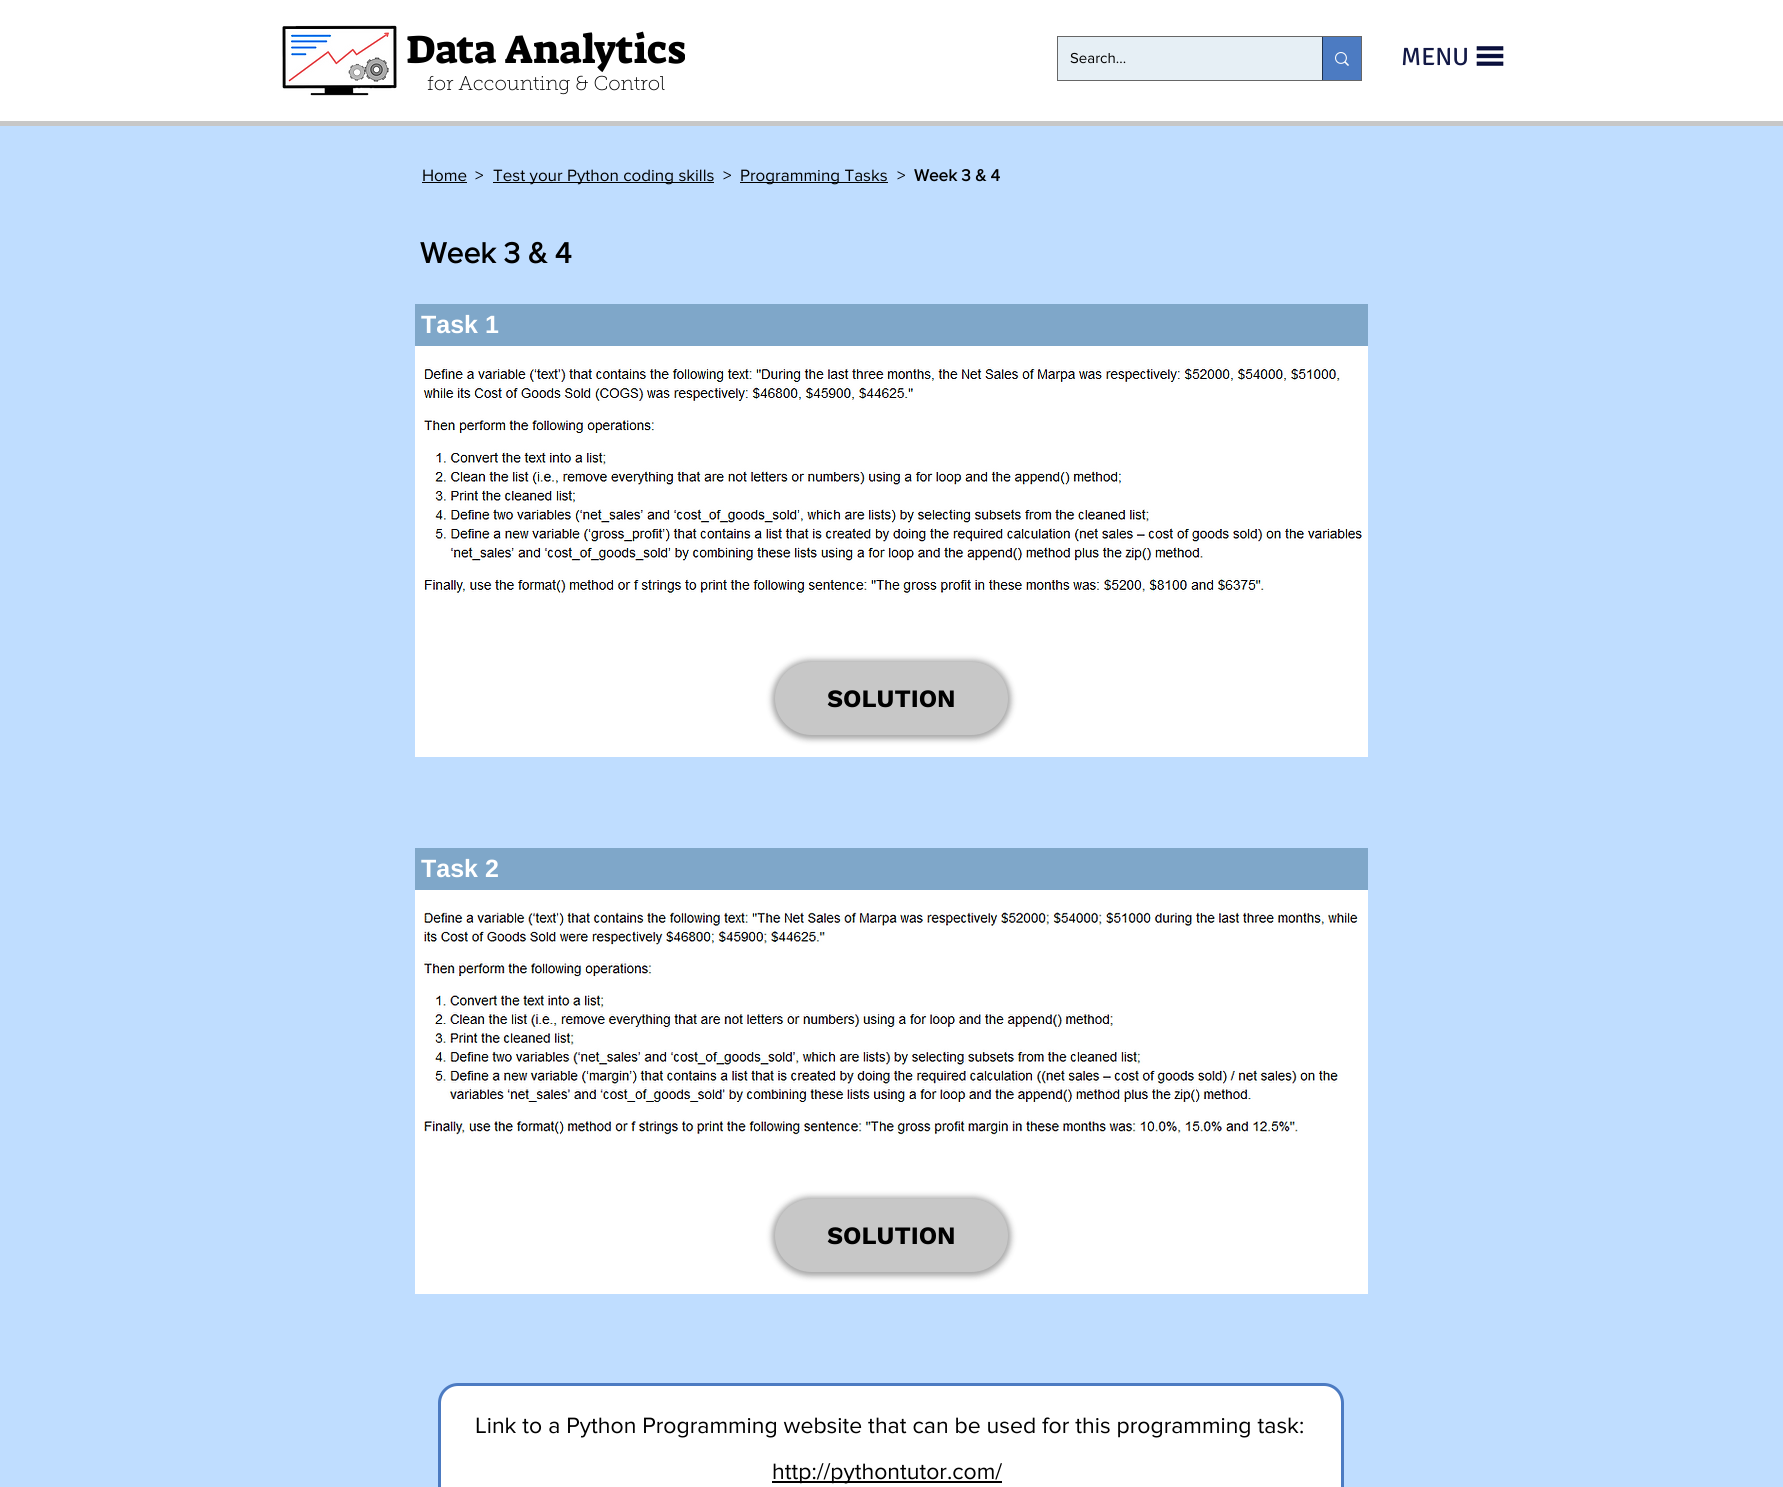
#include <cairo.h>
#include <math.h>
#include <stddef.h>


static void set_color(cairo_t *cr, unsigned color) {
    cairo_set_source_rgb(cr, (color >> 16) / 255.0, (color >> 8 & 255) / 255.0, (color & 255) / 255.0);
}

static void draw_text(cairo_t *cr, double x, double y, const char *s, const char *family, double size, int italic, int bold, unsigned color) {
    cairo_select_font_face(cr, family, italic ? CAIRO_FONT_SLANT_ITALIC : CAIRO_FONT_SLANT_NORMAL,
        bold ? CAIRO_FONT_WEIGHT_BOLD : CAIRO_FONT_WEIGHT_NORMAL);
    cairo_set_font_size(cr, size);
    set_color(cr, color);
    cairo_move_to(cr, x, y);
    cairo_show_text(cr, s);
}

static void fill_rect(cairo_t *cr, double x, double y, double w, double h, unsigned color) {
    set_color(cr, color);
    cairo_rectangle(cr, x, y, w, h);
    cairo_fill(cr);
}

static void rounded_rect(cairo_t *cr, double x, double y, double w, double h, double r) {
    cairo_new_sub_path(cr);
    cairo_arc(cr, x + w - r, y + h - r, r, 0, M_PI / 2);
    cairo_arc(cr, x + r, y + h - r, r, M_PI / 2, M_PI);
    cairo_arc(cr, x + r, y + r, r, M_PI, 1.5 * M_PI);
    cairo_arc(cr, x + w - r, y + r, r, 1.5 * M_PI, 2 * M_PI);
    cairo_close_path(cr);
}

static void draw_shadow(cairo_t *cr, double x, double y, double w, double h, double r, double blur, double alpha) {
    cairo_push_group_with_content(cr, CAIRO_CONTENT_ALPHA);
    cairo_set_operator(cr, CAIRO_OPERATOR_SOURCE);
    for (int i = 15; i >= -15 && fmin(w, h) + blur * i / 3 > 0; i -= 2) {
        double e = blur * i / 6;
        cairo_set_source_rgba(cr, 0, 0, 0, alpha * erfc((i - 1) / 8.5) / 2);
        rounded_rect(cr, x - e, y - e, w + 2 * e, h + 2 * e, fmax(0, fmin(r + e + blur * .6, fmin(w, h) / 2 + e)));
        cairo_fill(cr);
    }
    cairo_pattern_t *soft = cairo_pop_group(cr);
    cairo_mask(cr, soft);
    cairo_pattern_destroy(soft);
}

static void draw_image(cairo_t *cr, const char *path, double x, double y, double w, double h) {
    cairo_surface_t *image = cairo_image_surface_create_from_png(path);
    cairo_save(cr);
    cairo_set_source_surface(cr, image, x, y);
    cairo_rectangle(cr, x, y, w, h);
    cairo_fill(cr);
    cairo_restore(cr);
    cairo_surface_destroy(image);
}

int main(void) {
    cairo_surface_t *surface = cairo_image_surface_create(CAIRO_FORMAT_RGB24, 1783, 1487);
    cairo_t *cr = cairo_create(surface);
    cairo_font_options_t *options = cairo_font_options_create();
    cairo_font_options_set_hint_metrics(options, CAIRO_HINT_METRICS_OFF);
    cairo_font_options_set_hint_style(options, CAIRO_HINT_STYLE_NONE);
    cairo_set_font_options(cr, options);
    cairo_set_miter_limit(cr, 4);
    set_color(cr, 0xBFDDFF);
    cairo_paint(cr);
    fill_rect(cr, 0, 0, 1783, 121, 0xFFFFFF);
    fill_rect(cr, 0, 121, 1783, 5, 0xC7C7C7);
    draw_image(cr, "assets/img1.png", 282, 25, 115, 71);
    draw_text(cr, 406, 63, "Data Analytics", "Suez One", 40, 0, 0, 0x000000);
    draw_text(cr, 427, 90, "for Accounting & Control", "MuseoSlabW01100 Thin", 20, 0, 0, 0x000000);
    cairo_rectangle(cr, 1057.5, 36.5, 304, 44);
    set_color(cr, 0x666666);
    cairo_set_line_width(cr, 1);
    cairo_stroke(cr);
    fill_rect(cr, 1058, 37, 264, 43, 0xE6EFF5);
    draw_text(cr, 1070, 63, "Search...", "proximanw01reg", 15, 0, 0, 0x000000);
    fill_rect(cr, 1323, 37, 38, 43, 0x4C7BC2);
    fill_rect(cr, 1322, 37, 1, 43, 0x1E314E);
    draw_image(cr, "assets/img2.png", 1335, 52, 14, 14);
    draw_text(cr, 1401, 65, "MENU", "Signika", 25, 0, 0, 0x131946);
    draw_image(cr, "assets/img3.png", 1476, 46, 28, 20);
    draw_text(cr, 422, 181, "Home", "proximanw01reg", 17, 0, 0, 0x000000);
    fill_rect(cr, 422, 182, 45, 1, 0x000000);
    draw_text(cr, 475, 181, ">", "proximanw01reg", 17, 0, 0, 0x000000);
    fill_rect(cr, 493, 182, 221, 1, 0x000000);
    draw_text(cr, 493, 181, "Test your Python coding skills", "proximanw01reg", 17, 0, 0, 0x000000);
    draw_text(cr, 723, 181, ">", "proximanw01reg", 17, 0, 0, 0x000000);
    fill_rect(cr, 740, 182, 148, 1, 0x000000);
    draw_text(cr, 740, 181, "Programming Tasks", "proximanw01reg", 17, 0, 0, 0x000000);
    draw_text(cr, 897, 181, ">", "proximanw01reg", 17, 0, 0, 0x000000);
    draw_text(cr, 914, 181, "Week 3 & 4", "proximanw01reg", 17, 0, 1, 0x000000);
    draw_text(cr, 420, 263, "Week 3 & 4", "proximanw01reg", 30, 0, 1, 0x000000);
    fill_rect(cr, 415, 304, 953, 42, 0x7FA7C9);
    draw_text(cr, 421, 333, "Task 1", "Liberation Sans", 25, 0, 1, 0xFFFFFF);
    fill_rect(cr, 415, 346, 953, 411, 0xFFFFFF);
    draw_image(cr, "assets/img4.png", 423, 366, 939, 229);
    set_color(cr, 0x000000);
    draw_shadow(cr, 772, 660, 239, 79, 39.5, 3, 0.35);
    set_color(cr, 0xC7C7C7);
    rounded_rect(cr, 775, 662, 233, 73, 36.5);
    cairo_fill(cr);
    draw_text(cr, 827, 707, "SOLUTION", "Work Sans", 25, 0, 1, 0x000000);
    fill_rect(cr, 415, 848, 953, 42, 0x7FA7C9);
    draw_text(cr, 421, 877, "Task 2", "Liberation Sans", 25, 0, 1, 0xFFFFFF);
    fill_rect(cr, 415, 890, 953, 404, 0xFFFFFF);
    draw_image(cr, "assets/img5.png", 424, 910, 936, 226);
    set_color(cr, 0x000000);
    draw_shadow(cr, 772, 1197, 239, 79, 39.5, 3, 0.35);
    set_color(cr, 0xC7C7C7);
    rounded_rect(cr, 775, 1199, 233, 73, 36.5);
    cairo_fill(cr);
    draw_text(cr, 827, 1244, "SOLUTION", "Work Sans", 25, 0, 1, 0x000000);
    set_color(cr, 0xFFFFFF);
    rounded_rect(cr, 439.5, 1384.5, 903, 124, 18.5);
    cairo_fill_preserve(cr);
    set_color(cr, 0x4C7BC2);
    cairo_set_line_width(cr, 3);
    cairo_stroke(cr);
    draw_text(cr, 475, 1433, "Link to a Python Programming website that can be used for this programming task:", "proximanw01reg", 23, 0, 0, 0x000000);
    fill_rect(cr, 772, 1481, 230, 2, 0x000000);
    draw_text(cr, 772, 1479, "http://pythontutor.com/", "proximanw01reg", 23, 0, 0, 0x000000);
    cairo_surface_write_to_png(surface, "output.png");
    cairo_font_options_destroy(options);
    cairo_destroy(cr);
    cairo_surface_destroy(surface);
    return 0;
}
